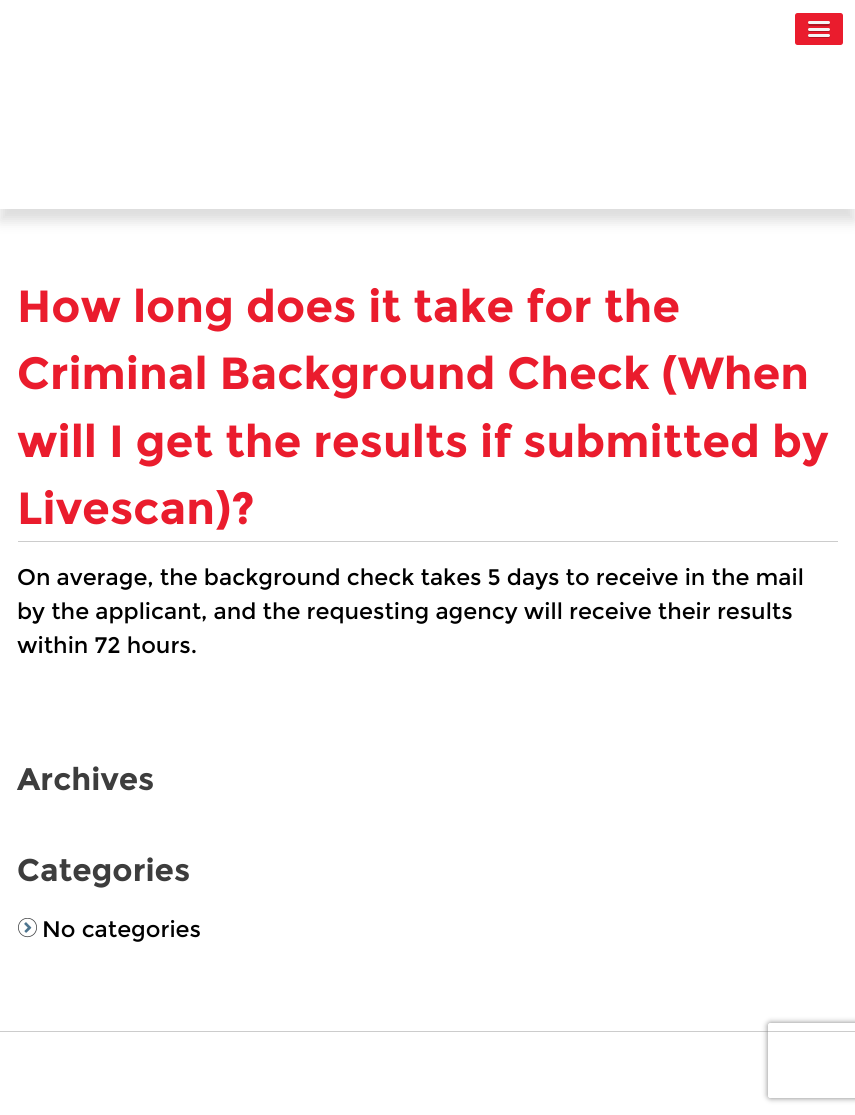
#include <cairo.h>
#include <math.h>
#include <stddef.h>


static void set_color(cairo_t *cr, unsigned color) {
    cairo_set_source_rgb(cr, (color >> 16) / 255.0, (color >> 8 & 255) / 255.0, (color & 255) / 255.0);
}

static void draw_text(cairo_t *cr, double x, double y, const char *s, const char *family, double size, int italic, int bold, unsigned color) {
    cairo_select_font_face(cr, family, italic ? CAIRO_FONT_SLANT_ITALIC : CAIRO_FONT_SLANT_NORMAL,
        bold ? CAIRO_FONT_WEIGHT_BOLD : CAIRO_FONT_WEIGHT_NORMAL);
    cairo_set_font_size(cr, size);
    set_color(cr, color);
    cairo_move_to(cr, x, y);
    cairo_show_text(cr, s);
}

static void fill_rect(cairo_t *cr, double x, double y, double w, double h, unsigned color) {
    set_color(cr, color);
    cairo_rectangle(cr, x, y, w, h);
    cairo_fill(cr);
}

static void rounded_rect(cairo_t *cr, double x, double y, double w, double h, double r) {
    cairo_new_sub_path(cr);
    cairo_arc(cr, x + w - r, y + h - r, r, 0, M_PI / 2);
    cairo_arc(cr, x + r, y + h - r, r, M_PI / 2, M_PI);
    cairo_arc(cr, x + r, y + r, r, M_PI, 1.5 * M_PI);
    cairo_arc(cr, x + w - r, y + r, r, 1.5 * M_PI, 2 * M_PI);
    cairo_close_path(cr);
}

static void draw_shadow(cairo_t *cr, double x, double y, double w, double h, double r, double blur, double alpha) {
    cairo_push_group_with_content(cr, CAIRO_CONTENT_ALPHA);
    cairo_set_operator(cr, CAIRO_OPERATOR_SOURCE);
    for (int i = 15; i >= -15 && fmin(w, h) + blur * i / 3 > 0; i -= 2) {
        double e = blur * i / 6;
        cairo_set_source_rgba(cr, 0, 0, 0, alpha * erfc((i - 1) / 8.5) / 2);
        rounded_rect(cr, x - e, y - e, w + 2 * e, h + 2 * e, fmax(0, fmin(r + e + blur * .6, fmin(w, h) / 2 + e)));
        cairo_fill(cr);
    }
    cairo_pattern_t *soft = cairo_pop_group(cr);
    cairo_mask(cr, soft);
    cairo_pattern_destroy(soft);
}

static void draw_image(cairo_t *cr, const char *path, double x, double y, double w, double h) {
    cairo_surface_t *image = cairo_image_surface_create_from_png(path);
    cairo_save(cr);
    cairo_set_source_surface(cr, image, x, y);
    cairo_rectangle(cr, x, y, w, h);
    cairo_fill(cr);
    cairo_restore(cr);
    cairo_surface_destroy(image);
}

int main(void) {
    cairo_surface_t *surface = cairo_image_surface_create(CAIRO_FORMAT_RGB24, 855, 1115);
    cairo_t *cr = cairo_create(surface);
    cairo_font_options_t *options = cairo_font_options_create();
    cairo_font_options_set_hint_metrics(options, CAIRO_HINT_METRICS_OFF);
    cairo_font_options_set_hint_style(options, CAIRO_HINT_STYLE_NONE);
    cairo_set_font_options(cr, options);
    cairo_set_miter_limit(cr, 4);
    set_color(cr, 0xFFFFFF);
    cairo_paint(cr);
    cairo_save(cr);
    cairo_set_fill_rule(cr, CAIRO_FILL_RULE_EVEN_ODD);
    cairo_new_path(cr);
    cairo_move_to(cr, 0, 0);
    cairo_line_to(cr, 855, 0);
    cairo_line_to(cr, 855, 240);
    cairo_line_to(cr, 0, 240);
    cairo_close_path(cr);
    cairo_move_to(cr, 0, 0);
    cairo_line_to(cr, 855, 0);
    cairo_line_to(cr, 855, 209);
    cairo_line_to(cr, 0, 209);
    cairo_close_path(cr);
    cairo_clip(cr);
    set_color(cr, 0xDDDDDD);
    draw_shadow(cr, 0, 13, 855, 208, 0, 6, 1);
    cairo_restore(cr);
    set_color(cr, 0xEA1C2D);
    rounded_rect(cr, 795, 13, 48, 32, 2.5);
    cairo_fill(cr);
    set_color(cr, 0xB01522);
    cairo_new_path(cr);
    cairo_move_to(cr, 808.5, 23.5);
    cairo_curve_to(cr, 806.5, 26.5, 812, 26, 812.5, 26);
    cairo_line_to(cr, 819, 26);
    cairo_curve_to(cr, 821, 26, 829, 26.5, 829.5, 25.5);
    cairo_curve_to(cr, 830, 24.5, 830, 24, 829.5, 23.5);
    cairo_curve_to(cr, 829, 24, 809.5, 24, 808.5, 23.5);
    cairo_close_path(cr);
    cairo_fill(cr);
    set_color(cr, 0xF5F5F5);
    rounded_rect(cr, 808, 21, 22, 3, 1.5);
    cairo_fill(cr);
    set_color(cr, 0xB01522);
    cairo_new_path(cr);
    cairo_move_to(cr, 808, 30);
    cairo_curve_to(cr, 807, 32.5, 812, 32, 812.5, 32);
    cairo_line_to(cr, 825.5, 32);
    cairo_curve_to(cr, 825.5, 32, 832, 32.5, 829.5, 29.5);
    cairo_line_to(cr, 829, 30);
    cairo_close_path(cr);
    cairo_fill(cr);
    set_color(cr, 0xF5F5F5);
    rounded_rect(cr, 808, 28, 22, 3, 1.5);
    cairo_fill(cr);
    set_color(cr, 0xB01522);
    cairo_new_path(cr);
    cairo_move_to(cr, 808, 36);
    cairo_curve_to(cr, 807.5, 38.5, 812, 38, 812.5, 38);
    cairo_line_to(cr, 825.5, 38);
    cairo_curve_to(cr, 826, 38, 831.5, 38.5, 830, 35.5);
    cairo_line_to(cr, 829, 36);
    cairo_close_path(cr);
    cairo_fill(cr);
    set_color(cr, 0xF5F5F5);
    rounded_rect(cr, 808, 34, 22, 3, 1.5);
    cairo_fill(cr);
    fill_rect(cr, 18, 541, 820, 1, 0xCCCCCC);
    draw_text(cr, 17, 322, "How long does it take for the", "Montserrat", 45, 0, 1, 0xEA1C2D);
    draw_text(cr, 17, 389, "Criminal Background Check (When", "Montserrat", 45, 0, 1, 0xEA1C2D);
    draw_text(cr, 17, 457, "will I get the results if submitted by", "Montserrat", 45, 0, 1, 0xEA1C2D);
    draw_text(cr, 17, 524, "Livescan)?", "Montserrat", 45, 0, 1, 0xEA1C2D);
    draw_text(cr, 17, 585, "On average, the background check takes 5 days to receive in the mail", "Montserrat", 22.5, 0, 0, 0x000000);
    draw_text(cr, 17, 619, "by the applicant, and the requesting agency will receive their results", "Montserrat", 22.5, 0, 0, 0x000000);
    draw_text(cr, 17, 653, "within 72 hours.", "Montserrat", 22.5, 0, 0, 0x000000);
    draw_text(cr, 17, 790, "Archives", "Montserrat", 31.25, 0, 1, 0x3D3D3D);
    draw_text(cr, 17, 881, "Categories", "Montserrat", 31.25, 0, 1, 0x3D3D3D);
    draw_image(cr, "assets/img1.png", 18, 918, 19, 20);
    draw_text(cr, 42, 937, "No categories", "Montserrat", 22.5, 0, 0, 0x000000);
    fill_rect(cr, 0, 1031, 855, 1, 0xCCCCCC);
    cairo_save(cr);
    cairo_set_fill_rule(cr, CAIRO_FILL_RULE_EVEN_ODD);
    cairo_new_path(cr);
    cairo_move_to(cr, 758, 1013);
    cairo_line_to(cr, 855, 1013);
    cairo_line_to(cr, 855, 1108);
    cairo_line_to(cr, 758, 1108);
    cairo_close_path(cr);
    cairo_move_to(cr, 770.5, 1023);
    cairo_line_to(cr, 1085.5, 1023);
    cairo_curve_to(cr, 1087, 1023, 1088, 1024, 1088, 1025.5);
    cairo_line_to(cr, 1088, 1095.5);
    cairo_curve_to(cr, 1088, 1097, 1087, 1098, 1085.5, 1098);
    cairo_line_to(cr, 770.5, 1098);
    cairo_curve_to(cr, 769, 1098, 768, 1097, 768, 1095.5);
    cairo_line_to(cr, 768, 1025.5);
    cairo_curve_to(cr, 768, 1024, 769, 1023, 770.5, 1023);
    cairo_close_path(cr);
    cairo_clip(cr);
    set_color(cr, 0x808080);
    draw_shadow(cr, 768, 1023, 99, 75, 2.5, 3, 1);
    cairo_restore(cr);
    cairo_surface_write_to_png(surface, "output.png");
    cairo_font_options_destroy(options);
    cairo_destroy(cr);
    cairo_surface_destroy(surface);
    return 0;
}
